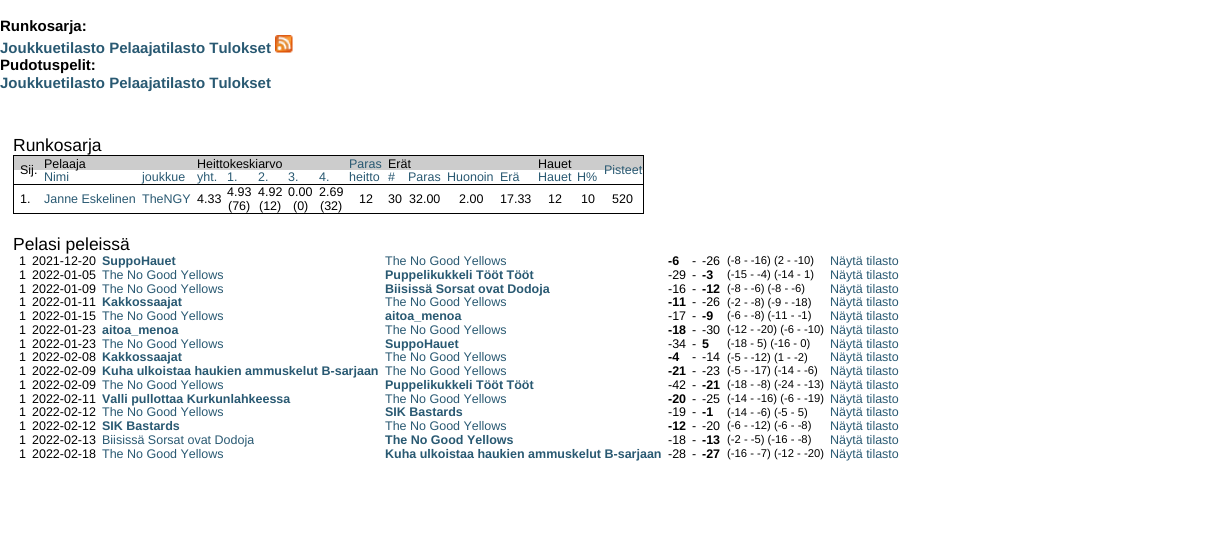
#include <cairo.h>
#include <math.h>
#include <stddef.h>


static void set_color(cairo_t *cr, unsigned color) {
    cairo_set_source_rgb(cr, (color >> 16) / 255.0, (color >> 8 & 255) / 255.0, (color & 255) / 255.0);
}

static void draw_text(cairo_t *cr, double x, double y, const char *s, const char *family, double size, int italic, int bold, unsigned color) {
    cairo_select_font_face(cr, family, italic ? CAIRO_FONT_SLANT_ITALIC : CAIRO_FONT_SLANT_NORMAL,
        bold ? CAIRO_FONT_WEIGHT_BOLD : CAIRO_FONT_WEIGHT_NORMAL);
    cairo_set_font_size(cr, size);
    set_color(cr, color);
    cairo_move_to(cr, x, y);
    cairo_show_text(cr, s);
}

static void fill_rect(cairo_t *cr, double x, double y, double w, double h, unsigned color) {
    set_color(cr, color);
    cairo_rectangle(cr, x, y, w, h);
    cairo_fill(cr);
}

static void draw_image(cairo_t *cr, const char *path, double x, double y, double w, double h) {
    cairo_surface_t *image = cairo_image_surface_create_from_png(path);
    cairo_save(cr);
    cairo_set_source_surface(cr, image, x, y);
    cairo_rectangle(cr, x, y, w, h);
    cairo_fill(cr);
    cairo_restore(cr);
    cairo_surface_destroy(image);
}

int main(void) {
    cairo_surface_t *surface = cairo_image_surface_create(CAIRO_FORMAT_RGB24, 1212, 549);
    cairo_t *cr = cairo_create(surface);
    cairo_font_options_t *options = cairo_font_options_create();
    cairo_font_options_set_hint_metrics(options, CAIRO_HINT_METRICS_OFF);
    cairo_font_options_set_hint_style(options, CAIRO_HINT_STYLE_NONE);
    cairo_set_font_options(cr, options);
    cairo_set_miter_limit(cr, 4);
    set_color(cr, 0xFFFFFF);
    cairo_paint(cr);
    draw_text(cr, 0, 31, "Runkosarja:", "Liberation Sans", 15, 0, 1, 0x000000);
    draw_text(cr, 0, 53, "Joukkuetilasto Pelaajatilasto Tulokset", "Liberation Sans", 15, 0, 1, 0x295972);
    draw_image(cr, "assets/img1.png", 275, 35, 18, 18);
    draw_text(cr, 0, 70, "Pudotuspelit:", "Liberation Sans", 15, 0, 1, 0x000000);
    draw_text(cr, 0, 88, "Joukkuetilasto Pelaajatilasto Tulokset", "Liberation Sans", 15, 0, 1, 0x295972);
    draw_text(cr, 13, 151, "Runkosarja", "Liberation Sans", 17.5, 0, 0, 0x000000);
    fill_rect(cr, 13, 155, 631, 1, 0x000000);
    fill_rect(cr, 643, 155, 1, 59, 0x000000);
    fill_rect(cr, 13, 213, 631, 1, 0x000000);
    fill_rect(cr, 13, 155, 1, 59, 0x000000);
    fill_rect(cr, 14, 156, 629, 14, 0xCCCCCC);
    draw_text(cr, 20, 174, "Sij.", "Liberation Sans", 12.5, 0, 0, 0x000000);
    draw_text(cr, 44, 168, "Pelaaja", "Liberation Sans", 12.5, 0, 0, 0x000000);
    draw_text(cr, 197, 168, "Heittokeskiarvo", "Liberation Sans", 12.5, 0, 0, 0x000000);
    draw_text(cr, 349, 168, "Paras", "Liberation Sans", 12.5, 0, 0, 0x295972);
    draw_text(cr, 349, 181, "heitto", "Liberation Sans", 12.5, 0, 0, 0x295972);
    draw_text(cr, 388, 168, "Erät", "Liberation Sans", 12.5, 0, 0, 0x000000);
    draw_text(cr, 538, 168, "Hauet", "Liberation Sans", 12.5, 0, 0, 0x000000);
    draw_text(cr, 604, 174, "Pisteet", "Liberation Sans", 12.5, 0, 0, 0x295972);
    fill_rect(cr, 13, 184, 631, 1, 0x000000);
    draw_text(cr, 44, 181, "Nimi", "Liberation Sans", 12.5, 0, 0, 0x295972);
    draw_text(cr, 142, 181, "joukkue", "Liberation Sans", 12.5, 0, 0, 0x295972);
    draw_text(cr, 197, 181, "yht.", "Liberation Sans", 12.5, 0, 0, 0x295972);
    draw_text(cr, 227, 181, "1.", "Liberation Sans", 12.5, 0, 0, 0x295972);
    draw_text(cr, 258, 181, "2.", "Liberation Sans", 12.5, 0, 0, 0x295972);
    draw_text(cr, 288, 181, "3.", "Liberation Sans", 12.5, 0, 0, 0x295972);
    draw_text(cr, 319, 181, "4.", "Liberation Sans", 12.5, 0, 0, 0x295972);
    draw_text(cr, 388, 181, "#", "Liberation Sans", 12.5, 0, 0, 0x295972);
    draw_text(cr, 408, 181, "Paras", "Liberation Sans", 12.5, 0, 0, 0x295972);
    draw_text(cr, 447, 181, "Huonoin", "Liberation Sans", 12.5, 0, 0, 0x295972);
    draw_text(cr, 500, 181, "Erä", "Liberation Sans", 12.5, 0, 0, 0x295972);
    draw_text(cr, 538, 181, "Hauet", "Liberation Sans", 12.5, 0, 0, 0x295972);
    draw_text(cr, 577, 181, "H%", "Liberation Sans", 12.5, 0, 0, 0x295972);
    draw_text(cr, 20, 203, "1.", "Liberation Sans", 12.5, 0, 0, 0x000000);
    draw_text(cr, 44, 203, "Janne Eskelinen", "Liberation Sans", 12.5, 0, 0, 0x295972);
    draw_text(cr, 142, 203, "TheNGY", "Liberation Sans", 12.5, 0, 0, 0x295972);
    draw_text(cr, 197, 203, "4.33", "Liberation Sans", 12.5, 0, 0, 0x000000);
    draw_text(cr, 227, 196, "4.93", "Liberation Sans", 12.5, 0, 0, 0x000000);
    draw_text(cr, 228, 210, "(76)", "Liberation Sans", 12.5, 0, 0, 0x000000);
    draw_text(cr, 258, 196, "4.92", "Liberation Sans", 12.5, 0, 0, 0x000000);
    draw_text(cr, 259, 210, "(12)", "Liberation Sans", 12.5, 0, 0, 0x000000);
    draw_text(cr, 288, 196, "0.00", "Liberation Sans", 12.5, 0, 0, 0x000000);
    draw_text(cr, 293, 210, "(0)", "Liberation Sans", 12.5, 0, 0, 0x000000);
    draw_text(cr, 319, 196, "2.69", "Liberation Sans", 12.5, 0, 0, 0x000000);
    draw_text(cr, 320, 210, "(32)", "Liberation Sans", 12.5, 0, 0, 0x000000);
    draw_text(cr, 359, 203, "12", "Liberation Sans", 12.5, 0, 0, 0x000000);
    draw_text(cr, 388, 203, "30", "Liberation Sans", 12.5, 0, 0, 0x000000);
    draw_text(cr, 409, 203, "32.00", "Liberation Sans", 12.5, 0, 0, 0x000000);
    draw_text(cr, 459, 203, "2.00", "Liberation Sans", 12.5, 0, 0, 0x000000);
    draw_text(cr, 500, 203, "17.33", "Liberation Sans", 12.5, 0, 0, 0x000000);
    draw_text(cr, 548, 203, "12", "Liberation Sans", 12.5, 0, 0, 0x000000);
    draw_text(cr, 581, 203, "10", "Liberation Sans", 12.5, 0, 0, 0x000000);
    draw_text(cr, 612, 203, "520", "Liberation Sans", 12.5, 0, 0, 0x000000);
    draw_text(cr, 13, 250, "Pelasi peleissä", "Liberation Sans", 17.5, 0, 0, 0x000000);
    draw_text(cr, 19, 265, "1", "Liberation Sans", 12.5, 0, 0, 0x000000);
    draw_text(cr, 32, 265, "2021-12-20", "Liberation Sans", 12.5, 0, 0, 0x000000);
    draw_text(cr, 102, 265, "SuppoHauet", "Liberation Sans", 12.5, 0, 1, 0x295972);
    draw_text(cr, 385, 265, "The No Good Yellows", "Liberation Sans", 12.5, 0, 0, 0x295972);
    draw_text(cr, 668, 265, "-6", "Liberation Sans", 12.5, 0, 1, 0x000000);
    draw_text(cr, 692, 265, "-", "Liberation Sans", 12.5, 0, 0, 0x000000);
    draw_text(cr, 702, 265, "-26", "Liberation Sans", 12.5, 0, 0, 0x000000);
    draw_text(cr, 727, 264, "(-8 - -16) (2 - -10)", "Liberation Sans", 11.25, 0, 0, 0x000000);
    draw_text(cr, 830, 265, "Näytä tilasto", "Liberation Sans", 12.5, 0, 0, 0x295972);
    draw_text(cr, 19, 279, "1", "Liberation Sans", 12.5, 0, 0, 0x000000);
    draw_text(cr, 32, 279, "2022-01-05", "Liberation Sans", 12.5, 0, 0, 0x000000);
    draw_text(cr, 102, 279, "The No Good Yellows", "Liberation Sans", 12.5, 0, 0, 0x295972);
    draw_text(cr, 385, 279, "Puppelikukkeli Tööt Tööt", "Liberation Sans", 12.5, 0, 1, 0x295972);
    draw_text(cr, 668, 279, "-29", "Liberation Sans", 12.5, 0, 0, 0x000000);
    draw_text(cr, 692, 279, "-", "Liberation Sans", 12.5, 0, 0, 0x000000);
    draw_text(cr, 702, 279, "-3", "Liberation Sans", 12.5, 0, 1, 0x000000);
    draw_text(cr, 727, 278, "(-15 - -4) (-14 - 1)", "Liberation Sans", 11.25, 0, 0, 0x000000);
    draw_text(cr, 830, 279, "Näytä tilasto", "Liberation Sans", 12.5, 0, 0, 0x295972);
    draw_text(cr, 19, 293, "1", "Liberation Sans", 12.5, 0, 0, 0x000000);
    draw_text(cr, 32, 293, "2022-01-09", "Liberation Sans", 12.5, 0, 0, 0x000000);
    draw_text(cr, 102, 293, "The No Good Yellows", "Liberation Sans", 12.5, 0, 0, 0x295972);
    draw_text(cr, 385, 293, "Biisissä Sorsat ovat Dodoja", "Liberation Sans", 12.5, 0, 1, 0x295972);
    draw_text(cr, 668, 293, "-16", "Liberation Sans", 12.5, 0, 0, 0x000000);
    draw_text(cr, 692, 293, "-", "Liberation Sans", 12.5, 0, 0, 0x000000);
    draw_text(cr, 702, 293, "-12", "Liberation Sans", 12.5, 0, 1, 0x000000);
    draw_text(cr, 727, 292, "(-8 - -6) (-8 - -6)", "Liberation Sans", 11.25, 0, 0, 0x000000);
    draw_text(cr, 830, 293, "Näytä tilasto", "Liberation Sans", 12.5, 0, 0, 0x295972);
    draw_text(cr, 19, 306, "1", "Liberation Sans", 12.5, 0, 0, 0x000000);
    draw_text(cr, 32, 306, "2022-01-11", "Liberation Sans", 12.5, 0, 0, 0x000000);
    draw_text(cr, 102, 306, "Kakkossaajat", "Liberation Sans", 12.5, 0, 1, 0x295972);
    draw_text(cr, 385, 306, "The No Good Yellows", "Liberation Sans", 12.5, 0, 0, 0x295972);
    draw_text(cr, 668, 306, "-11", "Liberation Sans", 12.5, 0, 1, 0x000000);
    draw_text(cr, 692, 306, "-", "Liberation Sans", 12.5, 0, 0, 0x000000);
    draw_text(cr, 702, 306, "-26", "Liberation Sans", 12.5, 0, 0, 0x000000);
    draw_text(cr, 727, 306, "(-2 - -8) (-9 - -18)", "Liberation Sans", 11.25, 0, 0, 0x000000);
    draw_text(cr, 830, 306, "Näytä tilasto", "Liberation Sans", 12.5, 0, 0, 0x295972);
    draw_text(cr, 19, 320, "1", "Liberation Sans", 12.5, 0, 0, 0x000000);
    draw_text(cr, 32, 320, "2022-01-15", "Liberation Sans", 12.5, 0, 0, 0x000000);
    draw_text(cr, 102, 320, "The No Good Yellows", "Liberation Sans", 12.5, 0, 0, 0x295972);
    draw_text(cr, 385, 320, "aitoa_menoa", "Liberation Sans", 12.5, 0, 1, 0x295972);
    draw_text(cr, 668, 320, "-17", "Liberation Sans", 12.5, 0, 0, 0x000000);
    draw_text(cr, 692, 320, "-", "Liberation Sans", 12.5, 0, 0, 0x000000);
    draw_text(cr, 702, 320, "-9", "Liberation Sans", 12.5, 0, 1, 0x000000);
    draw_text(cr, 727, 319, "(-6 - -8) (-11 - -1)", "Liberation Sans", 11.25, 0, 0, 0x000000);
    draw_text(cr, 830, 320, "Näytä tilasto", "Liberation Sans", 12.5, 0, 0, 0x295972);
    draw_text(cr, 19, 334, "1", "Liberation Sans", 12.5, 0, 0, 0x000000);
    draw_text(cr, 32, 334, "2022-01-23", "Liberation Sans", 12.5, 0, 0, 0x000000);
    draw_text(cr, 102, 334, "aitoa_menoa", "Liberation Sans", 12.5, 0, 1, 0x295972);
    draw_text(cr, 385, 334, "The No Good Yellows", "Liberation Sans", 12.5, 0, 0, 0x295972);
    draw_text(cr, 668, 334, "-18", "Liberation Sans", 12.5, 0, 1, 0x000000);
    draw_text(cr, 692, 334, "-", "Liberation Sans", 12.5, 0, 0, 0x000000);
    draw_text(cr, 702, 334, "-30", "Liberation Sans", 12.5, 0, 0, 0x000000);
    draw_text(cr, 727, 333, "(-12 - -20) (-6 - -10)", "Liberation Sans", 11.25, 0, 0, 0x000000);
    draw_text(cr, 830, 334, "Näytä tilasto", "Liberation Sans", 12.5, 0, 0, 0x295972);
    draw_text(cr, 19, 348, "1", "Liberation Sans", 12.5, 0, 0, 0x000000);
    draw_text(cr, 32, 348, "2022-01-23", "Liberation Sans", 12.5, 0, 0, 0x000000);
    draw_text(cr, 102, 348, "The No Good Yellows", "Liberation Sans", 12.5, 0, 0, 0x295972);
    draw_text(cr, 385, 348, "SuppoHauet", "Liberation Sans", 12.5, 0, 1, 0x295972);
    draw_text(cr, 668, 348, "-34", "Liberation Sans", 12.5, 0, 0, 0x000000);
    draw_text(cr, 692, 348, "-", "Liberation Sans", 12.5, 0, 0, 0x000000);
    draw_text(cr, 702, 348, "5", "Liberation Sans", 12.5, 0, 1, 0x000000);
    draw_text(cr, 727, 347, "(-18 - 5) (-16 - 0)", "Liberation Sans", 11.25, 0, 0, 0x000000);
    draw_text(cr, 830, 348, "Näytä tilasto", "Liberation Sans", 12.5, 0, 0, 0x295972);
    draw_text(cr, 19, 361, "1", "Liberation Sans", 12.5, 0, 0, 0x000000);
    draw_text(cr, 32, 361, "2022-02-08", "Liberation Sans", 12.5, 0, 0, 0x000000);
    draw_text(cr, 102, 361, "Kakkossaajat", "Liberation Sans", 12.5, 0, 1, 0x295972);
    draw_text(cr, 385, 361, "The No Good Yellows", "Liberation Sans", 12.5, 0, 0, 0x295972);
    draw_text(cr, 668, 361, "-4", "Liberation Sans", 12.5, 0, 1, 0x000000);
    draw_text(cr, 692, 361, "-", "Liberation Sans", 12.5, 0, 0, 0x000000);
    draw_text(cr, 702, 361, "-14", "Liberation Sans", 12.5, 0, 0, 0x000000);
    draw_text(cr, 727, 361, "(-5 - -12) (1 - -2)", "Liberation Sans", 11.25, 0, 0, 0x000000);
    draw_text(cr, 830, 361, "Näytä tilasto", "Liberation Sans", 12.5, 0, 0, 0x295972);
    draw_text(cr, 19, 375, "1", "Liberation Sans", 12.5, 0, 0, 0x000000);
    draw_text(cr, 32, 375, "2022-02-09", "Liberation Sans", 12.5, 0, 0, 0x000000);
    draw_text(cr, 102, 375, "Kuha ulkoistaa haukien ammuskelut B-sarjaan", "Liberation Sans", 12.5, 0, 1, 0x295972);
    draw_text(cr, 385, 375, "The No Good Yellows", "Liberation Sans", 12.5, 0, 0, 0x295972);
    draw_text(cr, 668, 375, "-21", "Liberation Sans", 12.5, 0, 1, 0x000000);
    draw_text(cr, 692, 375, "-", "Liberation Sans", 12.5, 0, 0, 0x000000);
    draw_text(cr, 702, 375, "-23", "Liberation Sans", 12.5, 0, 0, 0x000000);
    draw_text(cr, 727, 374, "(-5 - -17) (-14 - -6)", "Liberation Sans", 11.25, 0, 0, 0x000000);
    draw_text(cr, 830, 375, "Näytä tilasto", "Liberation Sans", 12.5, 0, 0, 0x295972);
    draw_text(cr, 19, 389, "1", "Liberation Sans", 12.5, 0, 0, 0x000000);
    draw_text(cr, 32, 389, "2022-02-09", "Liberation Sans", 12.5, 0, 0, 0x000000);
    draw_text(cr, 102, 389, "The No Good Yellows", "Liberation Sans", 12.5, 0, 0, 0x295972);
    draw_text(cr, 385, 389, "Puppelikukkeli Tööt Tööt", "Liberation Sans", 12.5, 0, 1, 0x295972);
    draw_text(cr, 668, 389, "-42", "Liberation Sans", 12.5, 0, 0, 0x000000);
    draw_text(cr, 692, 389, "-", "Liberation Sans", 12.5, 0, 0, 0x000000);
    draw_text(cr, 702, 389, "-21", "Liberation Sans", 12.5, 0, 1, 0x000000);
    draw_text(cr, 727, 388, "(-18 - -8) (-24 - -13)", "Liberation Sans", 11.25, 0, 0, 0x000000);
    draw_text(cr, 830, 389, "Näytä tilasto", "Liberation Sans", 12.5, 0, 0, 0x295972);
    draw_text(cr, 19, 403, "1", "Liberation Sans", 12.5, 0, 0, 0x000000);
    draw_text(cr, 32, 403, "2022-02-11", "Liberation Sans", 12.5, 0, 0, 0x000000);
    draw_text(cr, 102, 403, "Valli pullottaa Kurkunlahkeessa", "Liberation Sans", 12.5, 0, 1, 0x295972);
    draw_text(cr, 385, 403, "The No Good Yellows", "Liberation Sans", 12.5, 0, 0, 0x295972);
    draw_text(cr, 668, 403, "-20", "Liberation Sans", 12.5, 0, 1, 0x000000);
    draw_text(cr, 692, 403, "-", "Liberation Sans", 12.5, 0, 0, 0x000000);
    draw_text(cr, 702, 403, "-25", "Liberation Sans", 12.5, 0, 0, 0x000000);
    draw_text(cr, 727, 402, "(-14 - -16) (-6 - -19)", "Liberation Sans", 11.25, 0, 0, 0x000000);
    draw_text(cr, 830, 403, "Näytä tilasto", "Liberation Sans", 12.5, 0, 0, 0x295972);
    draw_text(cr, 19, 416, "1", "Liberation Sans", 12.5, 0, 0, 0x000000);
    draw_text(cr, 32, 416, "2022-02-12", "Liberation Sans", 12.5, 0, 0, 0x000000);
    draw_text(cr, 102, 416, "The No Good Yellows", "Liberation Sans", 12.5, 0, 0, 0x295972);
    draw_text(cr, 385, 416, "SIK Bastards", "Liberation Sans", 12.5, 0, 1, 0x295972);
    draw_text(cr, 668, 416, "-19", "Liberation Sans", 12.5, 0, 0, 0x000000);
    draw_text(cr, 692, 416, "-", "Liberation Sans", 12.5, 0, 0, 0x000000);
    draw_text(cr, 702, 416, "-1", "Liberation Sans", 12.5, 0, 1, 0x000000);
    draw_text(cr, 727, 416, "(-14 - -6) (-5 - 5)", "Liberation Sans", 11.25, 0, 0, 0x000000);
    draw_text(cr, 830, 416, "Näytä tilasto", "Liberation Sans", 12.5, 0, 0, 0x295972);
    draw_text(cr, 19, 430, "1", "Liberation Sans", 12.5, 0, 0, 0x000000);
    draw_text(cr, 32, 430, "2022-02-12", "Liberation Sans", 12.5, 0, 0, 0x000000);
    draw_text(cr, 102, 430, "SIK Bastards", "Liberation Sans", 12.5, 0, 1, 0x295972);
    draw_text(cr, 385, 430, "The No Good Yellows", "Liberation Sans", 12.5, 0, 0, 0x295972);
    draw_text(cr, 668, 430, "-12", "Liberation Sans", 12.5, 0, 1, 0x000000);
    draw_text(cr, 692, 430, "-", "Liberation Sans", 12.5, 0, 0, 0x000000);
    draw_text(cr, 702, 430, "-20", "Liberation Sans", 12.5, 0, 0, 0x000000);
    draw_text(cr, 727, 429, "(-6 - -12) (-6 - -8)", "Liberation Sans", 11.25, 0, 0, 0x000000);
    draw_text(cr, 830, 430, "Näytä tilasto", "Liberation Sans", 12.5, 0, 0, 0x295972);
    draw_text(cr, 19, 444, "1", "Liberation Sans", 12.5, 0, 0, 0x000000);
    draw_text(cr, 32, 444, "2022-02-13", "Liberation Sans", 12.5, 0, 0, 0x000000);
    draw_text(cr, 102, 444, "Biisissä Sorsat ovat Dodoja", "Liberation Sans", 12.5, 0, 0, 0x295972);
    draw_text(cr, 385, 444, "The No Good Yellows", "Liberation Sans", 12.5, 0, 1, 0x295972);
    draw_text(cr, 668, 444, "-18", "Liberation Sans", 12.5, 0, 0, 0x000000);
    draw_text(cr, 692, 444, "-", "Liberation Sans", 12.5, 0, 0, 0x000000);
    draw_text(cr, 702, 444, "-13", "Liberation Sans", 12.5, 0, 1, 0x000000);
    draw_text(cr, 727, 443, "(-2 - -5) (-16 - -8)", "Liberation Sans", 11.25, 0, 0, 0x000000);
    draw_text(cr, 830, 444, "Näytä tilasto", "Liberation Sans", 12.5, 0, 0, 0x295972);
    draw_text(cr, 19, 458, "1", "Liberation Sans", 12.5, 0, 0, 0x000000);
    draw_text(cr, 32, 458, "2022-02-18", "Liberation Sans", 12.5, 0, 0, 0x000000);
    draw_text(cr, 102, 458, "The No Good Yellows", "Liberation Sans", 12.5, 0, 0, 0x295972);
    draw_text(cr, 385, 458, "Kuha ulkoistaa haukien ammuskelut B-sarjaan", "Liberation Sans", 12.5, 0, 1, 0x295972);
    draw_text(cr, 668, 458, "-28", "Liberation Sans", 12.5, 0, 0, 0x000000);
    draw_text(cr, 692, 458, "-", "Liberation Sans", 12.5, 0, 0, 0x000000);
    draw_text(cr, 702, 458, "-27", "Liberation Sans", 12.5, 0, 1, 0x000000);
    draw_text(cr, 727, 457, "(-16 - -7) (-12 - -20)", "Liberation Sans", 11.25, 0, 0, 0x000000);
    draw_text(cr, 830, 458, "Näytä tilasto", "Liberation Sans", 12.5, 0, 0, 0x295972);
    cairo_surface_write_to_png(surface, "output.png");
    cairo_font_options_destroy(options);
    cairo_destroy(cr);
    cairo_surface_destroy(surface);
    return 0;
}
